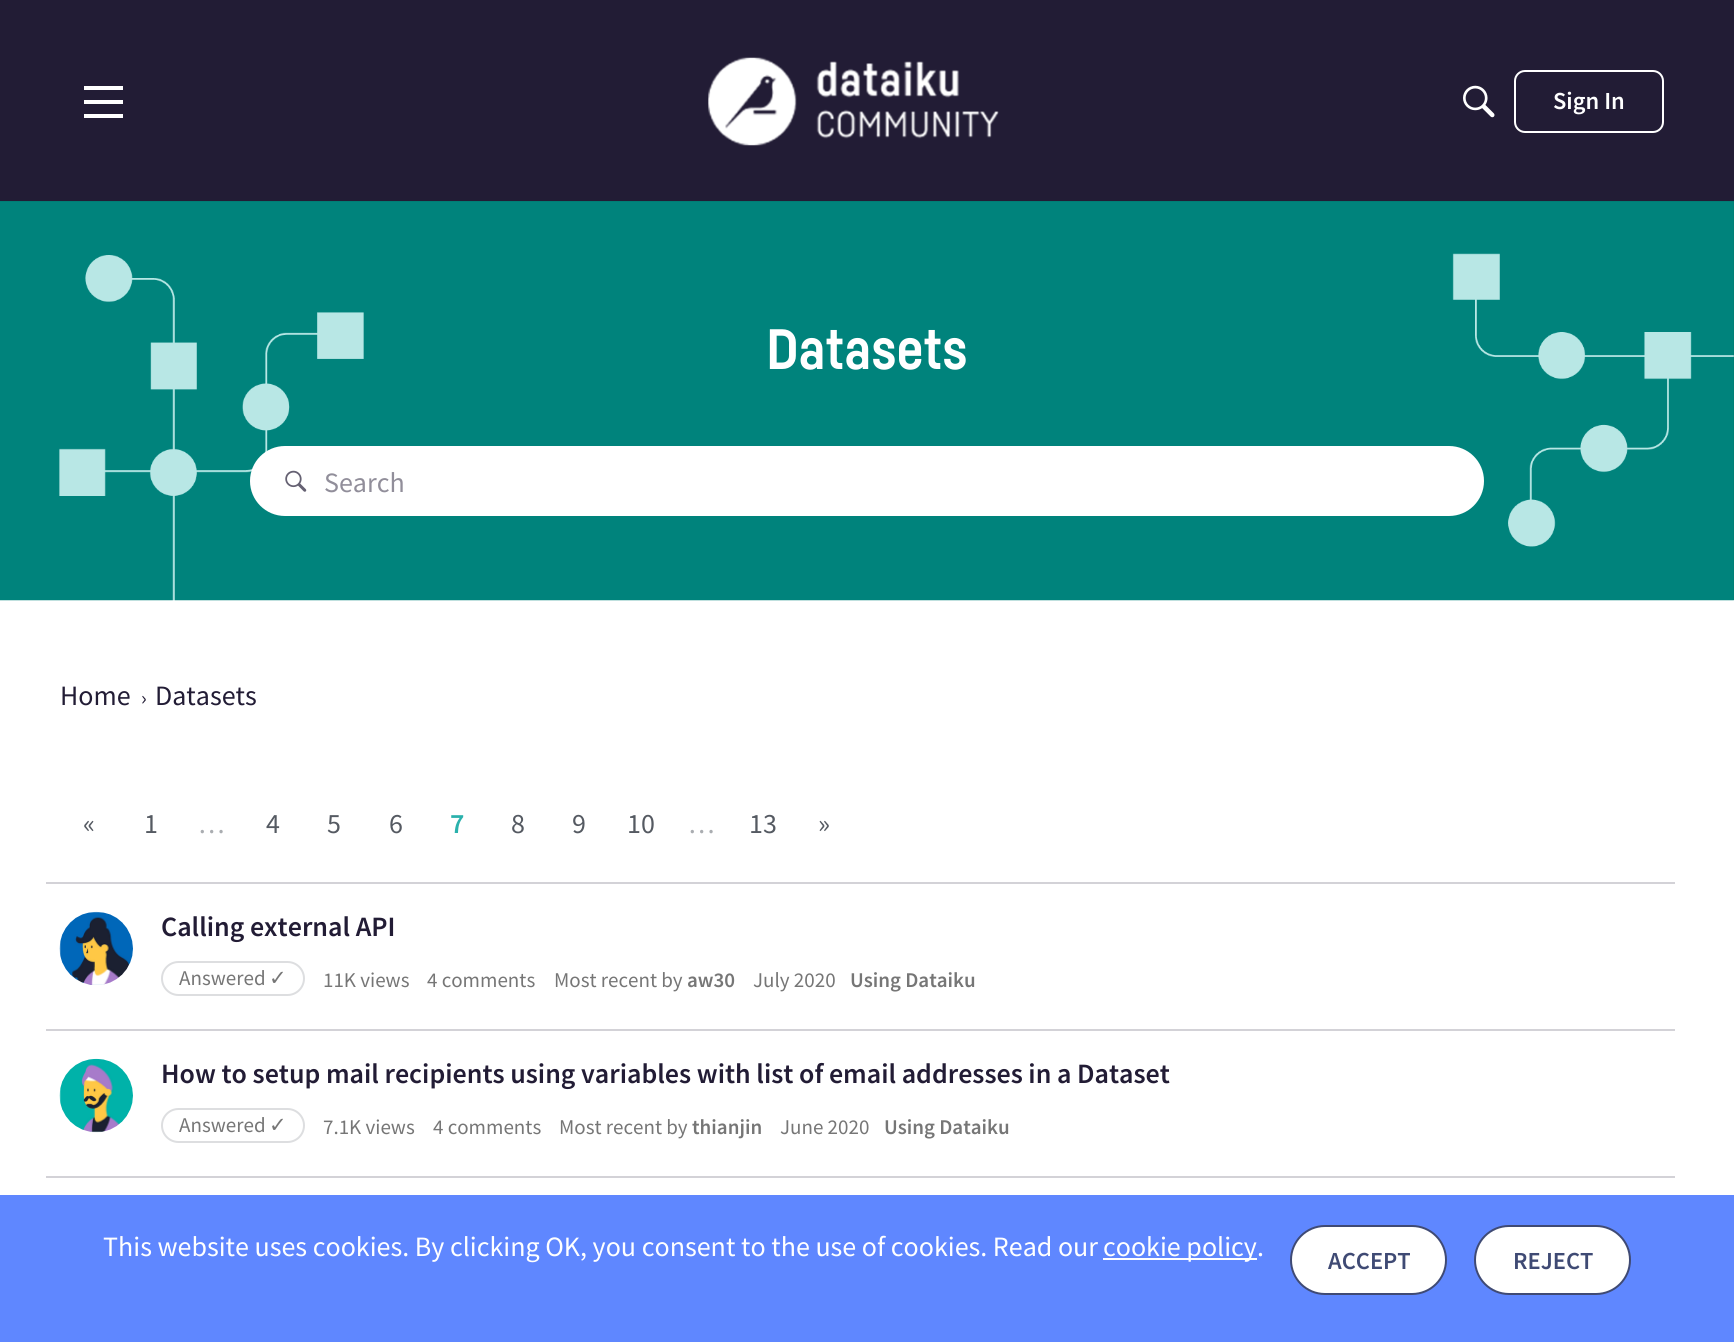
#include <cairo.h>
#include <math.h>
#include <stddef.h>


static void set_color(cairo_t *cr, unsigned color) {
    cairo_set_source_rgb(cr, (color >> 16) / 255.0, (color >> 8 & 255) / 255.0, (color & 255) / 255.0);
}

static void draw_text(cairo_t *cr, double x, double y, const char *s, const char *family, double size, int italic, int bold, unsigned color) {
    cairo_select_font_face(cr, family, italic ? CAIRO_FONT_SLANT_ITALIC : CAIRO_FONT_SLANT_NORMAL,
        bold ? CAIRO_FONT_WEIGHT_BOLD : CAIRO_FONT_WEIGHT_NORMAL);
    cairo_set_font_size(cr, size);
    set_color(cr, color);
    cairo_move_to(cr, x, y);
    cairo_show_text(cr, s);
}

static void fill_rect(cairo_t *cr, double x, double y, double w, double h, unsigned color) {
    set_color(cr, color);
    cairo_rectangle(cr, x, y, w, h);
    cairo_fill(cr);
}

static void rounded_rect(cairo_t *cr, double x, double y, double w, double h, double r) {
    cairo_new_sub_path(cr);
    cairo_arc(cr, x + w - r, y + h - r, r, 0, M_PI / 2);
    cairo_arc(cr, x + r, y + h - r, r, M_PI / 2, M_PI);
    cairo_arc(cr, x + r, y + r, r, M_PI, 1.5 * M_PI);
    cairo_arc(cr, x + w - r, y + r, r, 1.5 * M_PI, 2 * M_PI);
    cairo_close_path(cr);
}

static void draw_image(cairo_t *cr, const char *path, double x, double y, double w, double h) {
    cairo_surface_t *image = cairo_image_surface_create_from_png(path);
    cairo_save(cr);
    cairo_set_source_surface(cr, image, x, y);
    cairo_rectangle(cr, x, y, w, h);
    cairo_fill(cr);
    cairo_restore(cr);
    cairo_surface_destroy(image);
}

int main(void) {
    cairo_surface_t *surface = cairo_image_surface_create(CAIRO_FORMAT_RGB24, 1734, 1342);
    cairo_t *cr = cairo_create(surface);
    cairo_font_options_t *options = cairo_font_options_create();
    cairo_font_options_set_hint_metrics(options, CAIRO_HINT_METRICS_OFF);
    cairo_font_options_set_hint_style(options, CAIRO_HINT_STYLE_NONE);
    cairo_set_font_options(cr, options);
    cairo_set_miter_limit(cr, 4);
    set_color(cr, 0xFFFFFF);
    cairo_paint(cr);
    fill_rect(cr, 0, 0, 1734, 201, 0x221C35);
    fill_rect(cr, 84, 86, 39, 4, 0xFFFFFF);
    fill_rect(cr, 84, 114, 39, 4, 0xFFFFFF);
    fill_rect(cr, 84, 100, 39, 4, 0xFFFFFF);
    draw_image(cr, "assets/img1.png", 708, 57, 291, 89);
    draw_image(cr, "assets/img2.png", 1463, 85, 32, 33);
    rounded_rect(cr, 1515, 71, 148, 61, 10);
    cairo_stroke(cr);
    draw_text(cr, 1553, 109, "Sign In", "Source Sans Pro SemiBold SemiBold", 24.5, 0, 0, 0xFFFFFF);
    fill_rect(cr, 0, 201, 1734, 399, 0x006D5F);
    draw_image(cr, "assets/img3.png", 0, 201, 1734, 400);
    draw_text(cr, 766, 369, "Datasets", "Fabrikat", 56, 0, 1, 0xFFFFFF);
    rounded_rect(cr, 250, 446, 1234, 70, 35);
    cairo_fill(cr);
    draw_image(cr, "assets/img4.png", 285, 470, 22, 22);
    draw_text(cr, 324, 492, "Search", "Source Sans Pro", 28, 0, 0, 0x918E9A);
    draw_text(cr, 60, 705, "Home", "Source Sans Pro", 28, 0, 0, 0x221C35);
    draw_text(cr, 141, 705, "›", "Source Sans Pro", 21, 0, 0, 0x221C35);
    draw_text(cr, 155, 705, "Datasets", "Source Sans Pro", 28, 0, 0, 0x221C35);
    draw_text(cr, 83, 833, "«", "Source Sans Pro", 28, 0, 0, 0x555A62);
    draw_text(cr, 144, 833, "1", "Source Sans Pro", 28, 0, 0, 0x555A62);
    draw_text(cr, 198, 833, "…", "Source Sans Pro", 28, 0, 0, 0xAAADB1);
    draw_text(cr, 266, 833, "4", "Source Sans Pro", 28, 0, 0, 0x555A62);
    draw_text(cr, 327, 833, "5", "Source Sans Pro", 28, 0, 0, 0x555A62);
    draw_text(cr, 389, 833, "6", "Source Sans Pro", 28, 0, 0, 0x555A62);
    draw_text(cr, 450, 833, "7", "Source Sans Pro SemiBold SemiBold", 28, 0, 0, 0x2AB1AC);
    draw_text(cr, 511, 833, "8", "Source Sans Pro", 28, 0, 0, 0x555A62);
    draw_text(cr, 572, 833, "9", "Source Sans Pro", 28, 0, 0, 0x555A62);
    draw_text(cr, 627, 833, "10", "Source Sans Pro", 28, 0, 0, 0x555A62);
    draw_text(cr, 688, 833, "…", "Source Sans Pro", 28, 0, 0, 0xAAADB1);
    draw_text(cr, 749, 833, "13", "Source Sans Pro", 28, 0, 0, 0x555A62);
    draw_text(cr, 818, 833, "»", "Source Sans Pro", 28, 0, 0, 0x555A62);
    fill_rect(cr, 46, 882, 1629, 2, 0xD3D2D7);
    draw_image(cr, "assets/img5.png", 59, 911, 74, 74);
    draw_text(cr, 161, 936, "Calling external API", "Source Sans Pro SemiBold SemiBold", 28, 0, 0, 0x221C35);
    rounded_rect(cr, 162, 962, 142, 33, 16.5);
    set_color(cr, 0xDDDEE0);
    cairo_stroke(cr);
    draw_text(cr, 179, 985, "Answered", "Source Sans Pro", 21, 0, 0, 0x767676);
    draw_text(cr, 269, 985, "✓", "DejaVu Sans", 21, 0, 0, 0x767676);
    draw_text(cr, 323, 987, "11K views", "Source Sans Pro", 21, 0, 0, 0x767676);
    draw_text(cr, 427, 987, "4 comments", "Source Sans Pro", 21, 0, 0, 0x767676);
    draw_text(cr, 554, 987, "Most recent by", "Source Sans Pro", 21, 0, 0, 0x767676);
    draw_text(cr, 687, 987, "aw30", "Source Sans Pro SemiBold SemiBold", 21, 0, 0, 0x767676);
    draw_text(cr, 753, 987, "July 2020", "Source Sans Pro", 21, 0, 0, 0x767676);
    draw_text(cr, 850, 987, "Using Dataiku", "Source Sans Pro SemiBold SemiBold", 21, 0, 0, 0x767676);
    fill_rect(cr, 46, 1029, 1629, 2, 0xD3D2D7);
    draw_image(cr, "assets/img6.png", 59, 1058, 74, 75);
    draw_text(cr, 161, 1083, "How to setup mail recipients using variables with list of email addresses in a Dataset", "Source Sans Pro SemiBold SemiBold", 28, 0, 0, 0x221C35);
    rounded_rect(cr, 162, 1109, 142, 33, 16.5);
    set_color(cr, 0xDDDEE0);
    cairo_stroke(cr);
    draw_text(cr, 179, 1132, "Answered", "Source Sans Pro", 21, 0, 0, 0x767676);
    draw_text(cr, 269, 1132, "✓", "DejaVu Sans", 21, 0, 0, 0x767676);
    draw_text(cr, 323, 1134, "7.1K views", "Source Sans Pro", 21, 0, 0, 0x767676);
    draw_text(cr, 433, 1134, "4 comments", "Source Sans Pro", 21, 0, 0, 0x767676);
    draw_text(cr, 559, 1134, "Most recent by", "Source Sans Pro", 21, 0, 0, 0x767676);
    draw_text(cr, 692, 1134, "thianjin", "Source Sans Pro SemiBold SemiBold", 21, 0, 0, 0x767676);
    draw_text(cr, 780, 1134, "June 2020", "Source Sans Pro", 21, 0, 0, 0x767676);
    draw_text(cr, 884, 1134, "Using Dataiku", "Source Sans Pro SemiBold SemiBold", 21, 0, 0, 0x767676);
    fill_rect(cr, 46, 1176, 1629, 2, 0xD3D2D7);
    fill_rect(cr, 0, 1195, 1734, 147, 0x5F87FF);
    draw_text(cr, 103, 1256, "This website uses cookies. By clicking OK, you consent to the use of cookies. Read our", "Source Sans Pro", 28, 0, 0, 0xFFFFFF);
    fill_rect(cr, 1103, 1258, 154, 2, 0xFFFFFF);
    draw_text(cr, 1103, 1256, "cookie policy.", "Source Sans Pro", 28, 0, 0, 0xFFFFFF);
    rounded_rect(cr, 1291, 1226, 155, 68, 34);
    cairo_fill_preserve(cr);
    set_color(cr, 0x3F4A74);
    cairo_stroke(cr);
    draw_text(cr, 1328, 1269, "ACCEPT", "Source Sans Pro SemiBold SemiBold", 24.5, 0, 0, 0x3F4A74);
    set_color(cr, 0xFFFFFF);
    rounded_rect(cr, 1475, 1226, 155, 68, 34);
    cairo_fill_preserve(cr);
    set_color(cr, 0x3F4A74);
    cairo_stroke(cr);
    draw_text(cr, 1513, 1269, "REJECT", "Source Sans Pro SemiBold SemiBold", 24.5, 0, 0, 0x3F4A74);
    cairo_surface_write_to_png(surface, "output.png");
    cairo_font_options_destroy(options);
    cairo_destroy(cr);
    cairo_surface_destroy(surface);
    return 0;
}
